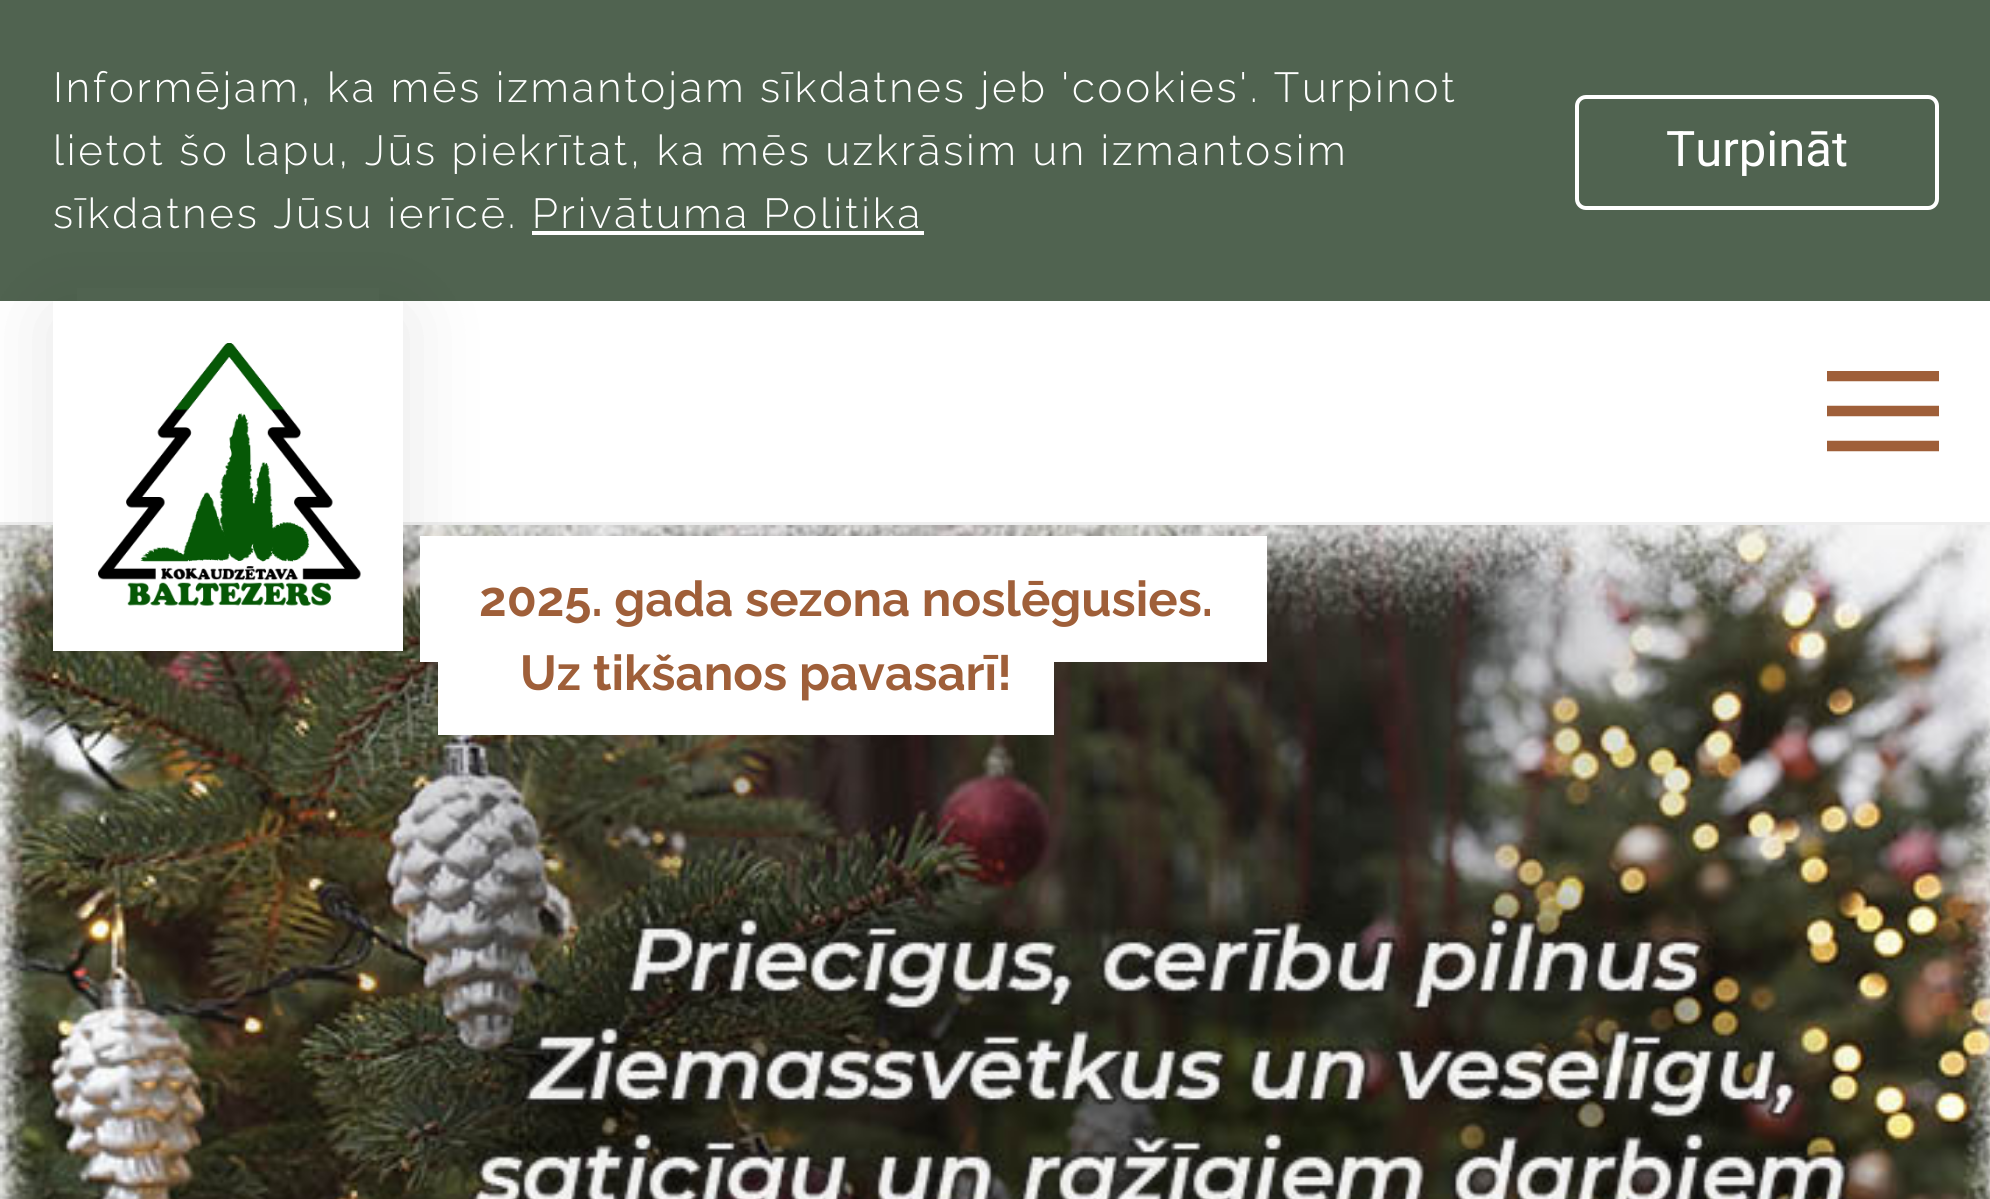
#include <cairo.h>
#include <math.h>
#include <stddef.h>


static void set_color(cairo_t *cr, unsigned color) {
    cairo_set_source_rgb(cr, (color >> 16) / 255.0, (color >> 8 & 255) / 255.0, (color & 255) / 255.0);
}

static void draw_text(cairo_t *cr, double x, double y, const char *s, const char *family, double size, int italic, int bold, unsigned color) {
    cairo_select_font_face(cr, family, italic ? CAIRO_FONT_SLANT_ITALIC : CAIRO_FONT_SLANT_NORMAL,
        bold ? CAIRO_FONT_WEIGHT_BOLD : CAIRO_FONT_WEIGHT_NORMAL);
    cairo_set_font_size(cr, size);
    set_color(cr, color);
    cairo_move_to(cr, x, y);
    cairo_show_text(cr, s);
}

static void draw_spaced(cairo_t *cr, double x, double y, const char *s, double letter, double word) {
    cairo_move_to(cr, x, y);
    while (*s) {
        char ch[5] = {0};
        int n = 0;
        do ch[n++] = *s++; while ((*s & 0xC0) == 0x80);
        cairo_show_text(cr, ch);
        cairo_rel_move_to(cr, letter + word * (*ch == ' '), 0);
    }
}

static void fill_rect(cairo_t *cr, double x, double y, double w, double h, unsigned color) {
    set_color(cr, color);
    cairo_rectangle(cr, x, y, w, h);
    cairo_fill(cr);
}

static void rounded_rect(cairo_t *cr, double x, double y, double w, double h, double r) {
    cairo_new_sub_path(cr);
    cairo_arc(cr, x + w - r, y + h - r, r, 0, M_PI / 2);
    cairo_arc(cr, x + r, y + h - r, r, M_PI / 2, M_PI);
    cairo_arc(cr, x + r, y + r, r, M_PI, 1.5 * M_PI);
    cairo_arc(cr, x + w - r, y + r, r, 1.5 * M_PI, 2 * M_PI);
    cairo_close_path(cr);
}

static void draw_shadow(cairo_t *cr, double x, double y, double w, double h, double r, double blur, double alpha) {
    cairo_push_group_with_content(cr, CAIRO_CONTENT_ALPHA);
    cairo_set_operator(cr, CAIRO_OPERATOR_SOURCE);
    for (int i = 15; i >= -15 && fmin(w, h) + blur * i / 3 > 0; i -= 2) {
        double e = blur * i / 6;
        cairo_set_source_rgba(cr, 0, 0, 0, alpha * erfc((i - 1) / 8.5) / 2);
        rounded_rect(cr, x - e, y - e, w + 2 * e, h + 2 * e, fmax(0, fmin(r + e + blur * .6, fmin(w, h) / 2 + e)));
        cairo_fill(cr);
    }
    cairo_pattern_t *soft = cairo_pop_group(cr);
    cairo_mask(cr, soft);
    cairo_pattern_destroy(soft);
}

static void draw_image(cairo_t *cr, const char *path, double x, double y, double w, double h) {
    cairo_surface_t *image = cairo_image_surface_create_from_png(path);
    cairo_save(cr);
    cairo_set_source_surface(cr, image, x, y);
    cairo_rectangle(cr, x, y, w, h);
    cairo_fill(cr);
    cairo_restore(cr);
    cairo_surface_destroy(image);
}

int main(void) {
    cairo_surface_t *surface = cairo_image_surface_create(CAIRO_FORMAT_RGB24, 1990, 1199);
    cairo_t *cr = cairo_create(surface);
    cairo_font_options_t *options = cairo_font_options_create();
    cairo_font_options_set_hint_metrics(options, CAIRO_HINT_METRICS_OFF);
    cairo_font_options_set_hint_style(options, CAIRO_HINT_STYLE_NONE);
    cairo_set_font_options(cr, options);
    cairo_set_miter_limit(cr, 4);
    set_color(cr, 0xFFFFFF);
    cairo_paint(cr);
    fill_rect(cr, 0, 0, 1990, 301, 0x506350);
    draw_image(cr, "assets/img1.png", 0, 525, 1990, 674);
    fill_rect(cr, 0, 522, 1990, 3, 0xEEEEEE);
    set_color(cr, 0x000000);
    draw_shadow(cr, 53, 315, 350, 350, 0, 42, 0.1);
    fill_rect(cr, 77, 288, 302, 13, 0x506350);
    cairo_select_font_face(cr, "Raleway Light", CAIRO_FONT_SLANT_NORMAL, CAIRO_FONT_WEIGHT_NORMAL);
    cairo_set_font_size(cr, 42);
    set_color(cr, 0xFFFFFF);
    draw_spaced(cr, 53, 102, "Informējam, ka mēs izmantojam sīkdatnes jeb 'cookies'. Turpinot", 2.8, 0);
    draw_spaced(cr, 53, 165, "lietot šo lapu, Jūs piekrītat, ka mēs uzkrāsim un izmantosim", 2.8, 0);
    draw_spaced(cr, 53, 228, "sīkdatnes Jūsu ierīcē. Privātuma Politika", 2.8, 0);
    fill_rect(cr, 532, 231, 392, 4, 0xFFFFFF);
    rounded_rect(cr, 1577, 97, 360, 111, 9);
    cairo_set_line_width(cr, 4);
    cairo_stroke(cr);
    draw_text(cr, 1666, 166, "Turpināt", "Roboto", 49, 0, 0, 0xFFFFFF);
    cairo_save(cr);
    cairo_rectangle(cr, 1827, 371, 112, 81);
    cairo_clip(cr);
    cairo_new_path(cr);
    cairo_move_to(cr, 1827, 376);
    cairo_line_to(cr, 1939, 376);
    cairo_move_to(cr, 1827, 411);
    cairo_line_to(cr, 1939, 411);
    cairo_move_to(cr, 1827, 446);
    cairo_line_to(cr, 1939, 446);
    set_color(cr, 0x9F5F39);
    cairo_set_line_width(cr, 10.5);
    cairo_stroke(cr);
    cairo_restore(cr);
    fill_rect(cr, 53, 301, 350, 350, 0xFFFFFF);
    draw_image(cr, "assets/img2.png", 98, 343, 263, 263);
    fill_rect(cr, 420, 536, 840, 126, 0xFFFFFF);
    draw_text(cr, 479, 616, "2025. gada sezona noslēgusies.", "Raleway", 49, 0, 1, 0x9F5F39);
    set_color(cr, 0xFFFFFF);
    cairo_new_path(cr);
    cairo_move_to(cr, 427, 662);
    cairo_line_to(cr, 1267, 662);
    cairo_line_to(cr, 1267, 536);
    cairo_line_to(cr, 1260, 536);
    cairo_line_to(cr, 1260, 662);
    cairo_close_path(cr);
    cairo_fill(cr);
    fill_rect(cr, 438, 662, 616, 73, 0xFFFFFF);
    draw_text(cr, 520, 690, "Uz tikšanos pavasarī!", "Raleway", 49, 0, 1, 0x9F5F39);
    cairo_surface_write_to_png(surface, "output.png");
    cairo_font_options_destroy(options);
    cairo_destroy(cr);
    cairo_surface_destroy(surface);
    return 0;
}
